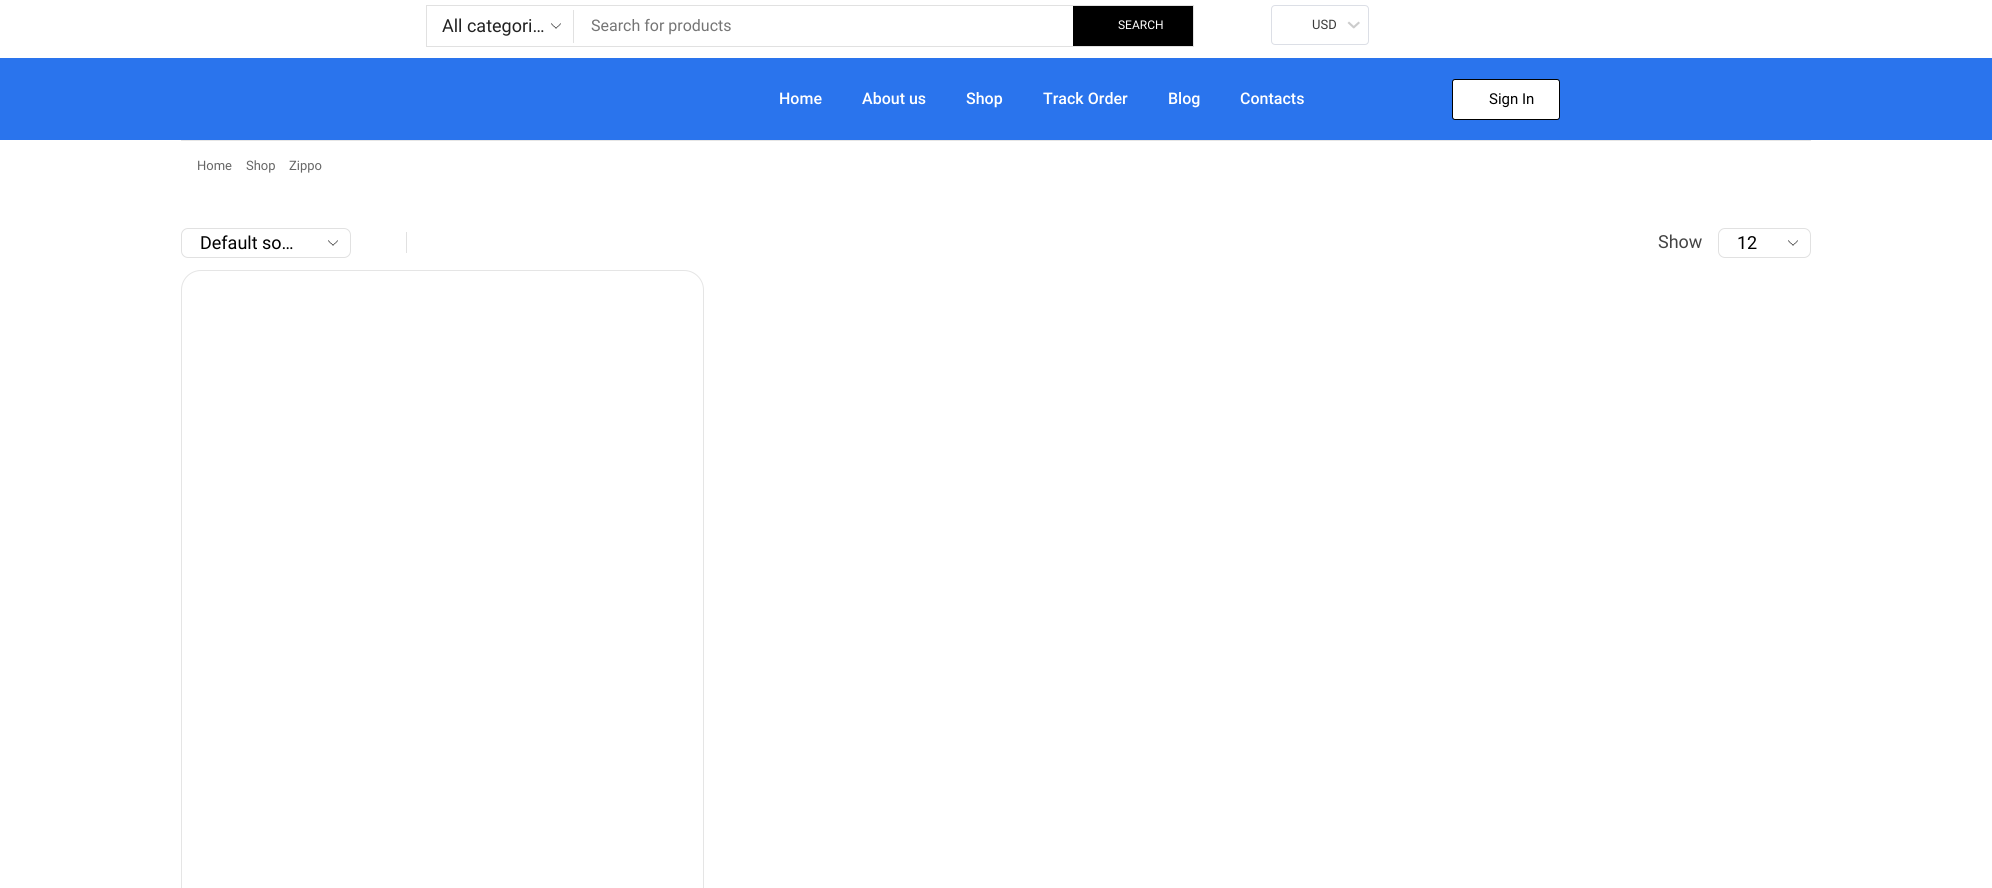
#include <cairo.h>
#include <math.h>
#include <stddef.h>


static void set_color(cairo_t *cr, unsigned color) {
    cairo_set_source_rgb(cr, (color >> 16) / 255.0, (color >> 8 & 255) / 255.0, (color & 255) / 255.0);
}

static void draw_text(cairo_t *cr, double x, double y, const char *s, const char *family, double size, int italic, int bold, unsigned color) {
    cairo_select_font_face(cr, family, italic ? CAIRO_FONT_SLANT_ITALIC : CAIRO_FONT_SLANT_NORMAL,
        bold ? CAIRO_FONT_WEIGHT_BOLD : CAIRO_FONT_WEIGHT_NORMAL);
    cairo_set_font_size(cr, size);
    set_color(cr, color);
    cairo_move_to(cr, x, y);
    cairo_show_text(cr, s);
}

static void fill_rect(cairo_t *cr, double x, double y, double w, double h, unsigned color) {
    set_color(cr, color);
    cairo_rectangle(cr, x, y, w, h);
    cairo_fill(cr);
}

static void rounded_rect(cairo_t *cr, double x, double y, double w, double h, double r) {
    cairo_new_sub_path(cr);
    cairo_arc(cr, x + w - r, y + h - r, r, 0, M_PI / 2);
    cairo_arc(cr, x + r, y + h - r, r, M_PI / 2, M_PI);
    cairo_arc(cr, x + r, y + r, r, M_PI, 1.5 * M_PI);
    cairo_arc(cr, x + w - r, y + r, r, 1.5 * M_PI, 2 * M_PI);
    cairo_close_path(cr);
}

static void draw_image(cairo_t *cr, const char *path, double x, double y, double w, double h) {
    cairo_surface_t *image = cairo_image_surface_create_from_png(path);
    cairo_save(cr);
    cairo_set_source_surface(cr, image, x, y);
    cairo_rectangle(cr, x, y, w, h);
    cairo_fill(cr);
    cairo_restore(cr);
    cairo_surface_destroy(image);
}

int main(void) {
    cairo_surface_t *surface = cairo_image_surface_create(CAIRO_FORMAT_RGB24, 1992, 888);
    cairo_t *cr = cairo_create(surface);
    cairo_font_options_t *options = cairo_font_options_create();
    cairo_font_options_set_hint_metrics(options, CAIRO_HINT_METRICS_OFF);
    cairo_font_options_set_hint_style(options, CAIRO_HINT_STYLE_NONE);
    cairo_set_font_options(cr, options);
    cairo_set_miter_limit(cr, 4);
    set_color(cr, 0xFFFFFF);
    cairo_paint(cr);
    cairo_rectangle(cr, 426.5, 5.5, 767, 41);
    set_color(cr, 0xE1E1E1);
    cairo_set_line_width(cr, 1);
    cairo_stroke(cr);
    draw_image(cr, "assets/img1.png", 551, 23, 10, 6);
    fill_rect(cr, 573, 10, 1, 33, 0xE1E1E1);
    draw_text(cr, 442, 32, "All categori…", "Roboto", 18, 0, 0, 0x222222);
    draw_text(cr, 591, 31, "Search for products", "Roboto", 16, 0, 0, 0x757575);
    fill_rect(cr, 1073, 6, 120, 40, 0x000000);
    draw_text(cr, 1118, 29, "SEARCH", "Roboto", 12, 0, 0, 0xFFFFFF);
    rounded_rect(cr, 1271.5, 5.5, 97, 39, 3.5);
    set_color(cr, 0xDCDFE6);
    cairo_stroke(cr);
    draw_text(cr, 1312, 29, "USD", "Roboto", 13, 0, 0, 0x3B3B3B);
    set_color(cr, 0xCCCCCC);
    cairo_new_path(cr);
    cairo_move_to(cr, 1347.5, 23);
    cairo_line_to(cr, 1349, 21.5);
    cairo_line_to(cr, 1355, 27);
    cairo_line_to(cr, 1353.5, 28.5);
    cairo_close_path(cr);
    cairo_fill(cr);
    cairo_new_path(cr);
    cairo_move_to(cr, 1358.5, 21.5);
    cairo_line_to(cr, 1360, 23);
    cairo_line_to(cr, 1354, 28.5);
    cairo_line_to(cr, 1352.5, 27);
    cairo_close_path(cr);
    cairo_fill(cr);
    fill_rect(cr, 0, 58, 1992, 82, 0x2A74ED);
    draw_text(cr, 779, 104, "Home", "Roboto Medium", 16, 0, 0, 0xFFFFFF);
    draw_text(cr, 862, 104, "About us", "Roboto Medium", 16, 0, 0, 0xFFFFFF);
    draw_text(cr, 966, 104, "Shop", "Roboto Medium", 16, 0, 0, 0xFFFFFF);
    draw_text(cr, 1043, 104, "Track Order", "Roboto Medium", 16, 0, 0, 0xFFFFFF);
    draw_text(cr, 1168, 104, "Blog", "Roboto Medium", 16, 0, 0, 0xFFFFFF);
    draw_text(cr, 1240, 104, "Contacts", "Roboto Medium", 16, 0, 0, 0xFFFFFF);
    rounded_rect(cr, 1452.5, 79.5, 107, 40, 2.5);
    cairo_fill_preserve(cr);
    set_color(cr, 0x000000);
    cairo_stroke(cr);
    draw_text(cr, 1489, 104, "Sign In", "Roboto", 15, 0, 0, 0x000000);
    fill_rect(cr, 181, 140, 1630, 1, 0xE6E6E6);
    draw_text(cr, 197, 170, "Home", "Roboto", 13, 0, 0, 0x666666);
    draw_text(cr, 246, 170, "Shop", "Roboto", 13, 0, 0, 0x666666);
    draw_text(cr, 289, 170, "Zippo", "Roboto", 13, 0, 0, 0x666666);
    draw_image(cr, "assets/img1.png", 328, 240, 10, 6);
    rounded_rect(cr, 181.5, 228.5, 169, 29, 6.5);
    set_color(cr, 0xE1E1E1);
    cairo_stroke(cr);
    draw_text(cr, 200, 249, "Default so…", "Roboto", 18, 0, 0, 0x000000);
    fill_rect(cr, 406, 232, 1, 21, 0xE1E1E1);
    draw_text(cr, 1658, 248, "Show", "Roboto", 18, 0, 0, 0x444444);
    draw_image(cr, "assets/img2.png", 1788, 240, 10, 6);
    rounded_rect(cr, 1718.5, 228.5, 92, 29, 6.5);
    set_color(cr, 0xE1E1E1);
    cairo_stroke(cr);
    draw_text(cr, 1737, 249, "12", "Roboto", 18, 0, 0, 0x000000);
    rounded_rect(cr, 181.5, 270.5, 522, 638, 19.5);
    set_color(cr, 0xE5E5E5);
    cairo_stroke(cr);
    cairo_surface_write_to_png(surface, "output.png");
    cairo_font_options_destroy(options);
    cairo_destroy(cr);
    cairo_surface_destroy(surface);
    return 0;
}
